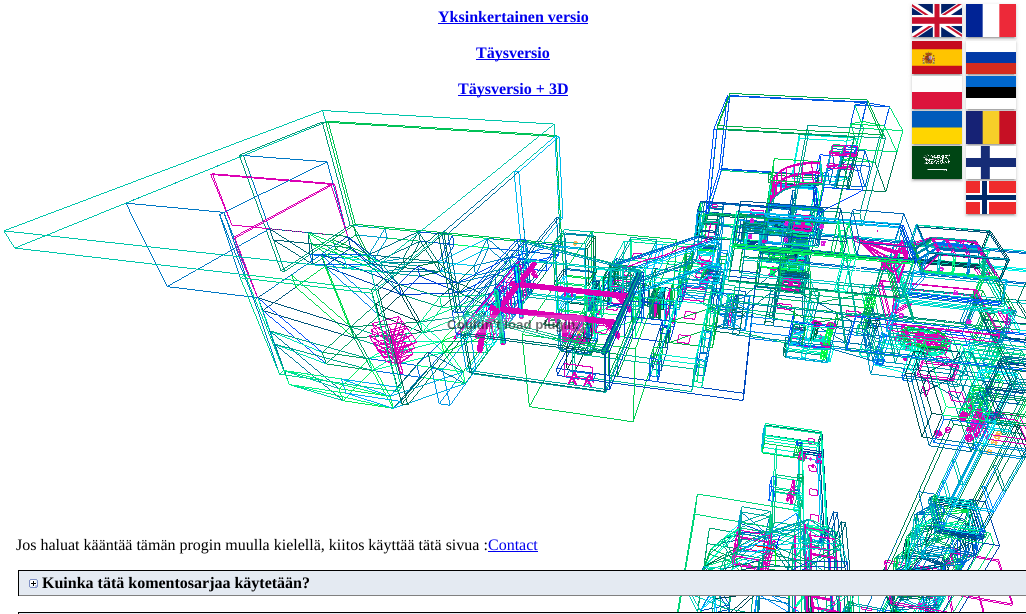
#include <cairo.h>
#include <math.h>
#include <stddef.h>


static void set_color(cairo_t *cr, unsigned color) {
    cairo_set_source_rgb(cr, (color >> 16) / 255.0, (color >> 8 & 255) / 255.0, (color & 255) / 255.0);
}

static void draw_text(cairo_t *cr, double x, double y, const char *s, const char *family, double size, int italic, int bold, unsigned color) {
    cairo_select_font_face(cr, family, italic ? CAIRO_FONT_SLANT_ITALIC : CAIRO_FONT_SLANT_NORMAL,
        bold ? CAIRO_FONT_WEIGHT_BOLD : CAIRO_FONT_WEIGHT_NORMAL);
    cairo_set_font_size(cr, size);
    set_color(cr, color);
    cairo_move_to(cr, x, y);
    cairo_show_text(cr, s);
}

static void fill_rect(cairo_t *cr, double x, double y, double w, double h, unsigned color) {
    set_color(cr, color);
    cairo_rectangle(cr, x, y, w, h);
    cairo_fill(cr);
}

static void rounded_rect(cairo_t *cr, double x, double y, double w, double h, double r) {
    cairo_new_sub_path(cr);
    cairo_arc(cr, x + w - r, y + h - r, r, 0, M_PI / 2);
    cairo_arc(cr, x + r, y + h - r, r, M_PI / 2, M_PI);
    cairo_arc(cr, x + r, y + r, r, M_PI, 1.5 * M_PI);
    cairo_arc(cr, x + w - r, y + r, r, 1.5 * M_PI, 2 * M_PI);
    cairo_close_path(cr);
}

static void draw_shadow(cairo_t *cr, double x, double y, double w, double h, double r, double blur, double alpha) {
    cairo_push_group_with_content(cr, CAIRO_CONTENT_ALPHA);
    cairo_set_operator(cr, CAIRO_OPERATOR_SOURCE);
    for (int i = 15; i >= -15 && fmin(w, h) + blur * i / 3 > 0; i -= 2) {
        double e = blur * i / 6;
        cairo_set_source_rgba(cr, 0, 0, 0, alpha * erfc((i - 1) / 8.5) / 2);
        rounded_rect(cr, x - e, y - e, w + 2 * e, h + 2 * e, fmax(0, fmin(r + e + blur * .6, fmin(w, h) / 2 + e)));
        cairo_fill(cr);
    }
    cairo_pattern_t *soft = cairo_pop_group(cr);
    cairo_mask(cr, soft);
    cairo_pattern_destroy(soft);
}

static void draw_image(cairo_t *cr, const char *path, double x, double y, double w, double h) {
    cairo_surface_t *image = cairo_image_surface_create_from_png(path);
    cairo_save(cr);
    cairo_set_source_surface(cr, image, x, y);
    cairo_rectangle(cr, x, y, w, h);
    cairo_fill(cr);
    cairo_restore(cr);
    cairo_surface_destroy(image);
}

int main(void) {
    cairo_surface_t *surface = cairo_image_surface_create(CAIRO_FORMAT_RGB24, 1026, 614);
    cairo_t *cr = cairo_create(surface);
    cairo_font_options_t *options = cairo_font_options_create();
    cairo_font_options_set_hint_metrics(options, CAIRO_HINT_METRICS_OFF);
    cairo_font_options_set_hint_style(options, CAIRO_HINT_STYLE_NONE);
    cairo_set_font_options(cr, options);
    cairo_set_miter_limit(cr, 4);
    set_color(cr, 0xFFFFFF);
    cairo_paint(cr);
    draw_image(cr, "assets/img1.png", 4, 93, 1022, 521);
    draw_text(cr, 438, 22, "Yksinkertainen versio", "Liberation Serif", 16, 0, 1, 0x0000EE);
    fill_rect(cr, 438, 23, 150, 1, 0x0000EE);
    fill_rect(cr, 476, 59, 74, 1, 0x0000EE);
    draw_text(cr, 476, 58, "Täysversio", "Liberation Serif", 16, 0, 1, 0x0000EE);
    fill_rect(cr, 458, 95, 110, 1, 0x0000EE);
    draw_text(cr, 458, 94, "Täysversio + 3D", "Liberation Serif", 16, 0, 1, 0x0000EE);
    draw_image(cr, "assets/img2.png", 441, 315, 144, 18);
    set_color(cr, 0x000000);
    draw_shadow(cr, 914, 9, 46, 29, 0, 0.5, 0.2);
    draw_shadow(cr, 912, 5, 50, 33, 0, 2.5, 0.12);
    draw_shadow(cr, 912, 6, 50, 33, 0, 1, 0.14);
    draw_image(cr, "assets/img3.png", 912, 4, 50, 33);
    draw_shadow(cr, 968, 9, 46, 29, 0, 0.5, 0.2);
    draw_shadow(cr, 966, 5, 50, 33, 0, 2.5, 0.12);
    draw_shadow(cr, 966, 6, 50, 33, 0, 1, 0.14);
    draw_image(cr, "assets/img4.png", 966, 4, 50, 33);
    draw_shadow(cr, 914, 46, 46, 29, 0, 0.5, 0.2);
    draw_shadow(cr, 912, 42, 50, 33, 0, 2.5, 0.12);
    draw_shadow(cr, 912, 43, 50, 33, 0, 1, 0.14);
    draw_image(cr, "assets/img5.png", 912, 41, 50, 33);
    cairo_save(cr);
    cairo_rectangle(cr, 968, 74, 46, 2);
    cairo_clip(cr);
    draw_shadow(cr, 968, 46, 46, 29, 0, 0.5, 0.2);
    cairo_restore(cr);
    cairo_save(cr);
    cairo_set_fill_rule(cr, CAIRO_FILL_RULE_EVEN_ODD);
    cairo_new_path(cr);
    cairo_move_to(cr, 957, 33);
    cairo_line_to(cr, 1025, 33);
    cairo_line_to(cr, 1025, 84);
    cairo_line_to(cr, 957, 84);
    cairo_close_path(cr);
    cairo_move_to(cr, 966, 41);
    cairo_line_to(cr, 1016, 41);
    cairo_line_to(cr, 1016, 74);
    cairo_line_to(cr, 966, 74);
    cairo_close_path(cr);
    cairo_clip(cr);
    draw_shadow(cr, 966, 42, 50, 33, 0, 2.5, 0.12);
    cairo_restore(cr);
    cairo_save(cr);
    cairo_set_fill_rule(cr, CAIRO_FILL_RULE_EVEN_ODD);
    cairo_new_path(cr);
    cairo_move_to(cr, 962, 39);
    cairo_line_to(cr, 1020, 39);
    cairo_line_to(cr, 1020, 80);
    cairo_line_to(cr, 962, 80);
    cairo_close_path(cr);
    cairo_move_to(cr, 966, 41);
    cairo_line_to(cr, 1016, 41);
    cairo_line_to(cr, 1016, 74);
    cairo_line_to(cr, 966, 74);
    cairo_close_path(cr);
    cairo_clip(cr);
    draw_shadow(cr, 966, 43, 50, 33, 0, 1, 0.14);
    cairo_restore(cr);
    draw_image(cr, "assets/img6.png", 966, 52, 50, 22);
    draw_shadow(cr, 914, 81, 46, 29, 0, 0.5, 0.2);
    draw_shadow(cr, 912, 77, 50, 33, 0, 2.5, 0.12);
    draw_shadow(cr, 912, 78, 50, 33, 0, 1, 0.14);
    draw_image(cr, "assets/img7.png", 912, 76, 50, 33);
    cairo_save(cr);
    cairo_rectangle(cr, 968, 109, 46, 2);
    cairo_clip(cr);
    draw_shadow(cr, 968, 81, 46, 29, 0, 0.5, 0.2);
    cairo_restore(cr);
    cairo_save(cr);
    cairo_set_fill_rule(cr, CAIRO_FILL_RULE_EVEN_ODD);
    cairo_new_path(cr);
    cairo_move_to(cr, 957, 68);
    cairo_line_to(cr, 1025, 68);
    cairo_line_to(cr, 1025, 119);
    cairo_line_to(cr, 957, 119);
    cairo_close_path(cr);
    cairo_move_to(cr, 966, 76);
    cairo_line_to(cr, 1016, 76);
    cairo_line_to(cr, 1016, 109);
    cairo_line_to(cr, 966, 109);
    cairo_close_path(cr);
    cairo_clip(cr);
    draw_shadow(cr, 966, 77, 50, 33, 0, 2.5, 0.12);
    cairo_restore(cr);
    cairo_save(cr);
    cairo_set_fill_rule(cr, CAIRO_FILL_RULE_EVEN_ODD);
    cairo_new_path(cr);
    cairo_move_to(cr, 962, 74);
    cairo_line_to(cr, 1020, 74);
    cairo_line_to(cr, 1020, 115);
    cairo_line_to(cr, 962, 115);
    cairo_close_path(cr);
    cairo_move_to(cr, 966, 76);
    cairo_line_to(cr, 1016, 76);
    cairo_line_to(cr, 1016, 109);
    cairo_line_to(cr, 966, 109);
    cairo_close_path(cr);
    cairo_clip(cr);
    draw_shadow(cr, 966, 78, 50, 33, 0, 1, 0.14);
    cairo_restore(cr);
    draw_image(cr, "assets/img8.png", 966, 76, 50, 22);
    draw_shadow(cr, 914, 116, 46, 29, 0, 0.5, 0.2);
    draw_shadow(cr, 968, 116, 46, 29, 0, 0.5, 0.2);
    draw_shadow(cr, 966, 112, 50, 33, 0, 2.5, 0.12);
    draw_shadow(cr, 966, 113, 50, 33, 0, 1, 0.14);
    draw_image(cr, "assets/img10.png", 966, 111, 50, 33);
    draw_shadow(cr, 912, 112, 50, 33, 0, 2.5, 0.12);
    draw_shadow(cr, 912, 113, 50, 33, 0, 1, 0.14);
    draw_image(cr, "assets/img9.png", 912, 111, 50, 33);
    draw_shadow(cr, 914, 151, 46, 29, 0, 0.5, 0.2);
    draw_shadow(cr, 912, 147, 50, 33, 0, 2.5, 0.12);
    draw_shadow(cr, 912, 148, 50, 33, 0, 1, 0.14);
    draw_image(cr, "assets/img11.png", 912, 146, 50, 33);
    draw_shadow(cr, 968, 151, 46, 29, 0, 0.5, 0.2);
    draw_shadow(cr, 966, 147, 50, 33, 0, 2.5, 0.12);
    draw_shadow(cr, 966, 148, 50, 33, 0, 1, 0.14);
    draw_image(cr, "assets/img12.png", 966, 146, 50, 33);
    draw_shadow(cr, 968, 186, 46, 29, 0, 0.5, 0.2);
    draw_shadow(cr, 966, 182, 50, 33, 0, 2.5, 0.12);
    draw_shadow(cr, 966, 183, 50, 33, 0, 1, 0.14);
    draw_image(cr, "assets/img13.png", 966, 181, 50, 33);
    draw_text(cr, 16, 550, "Jos haluat kääntää tämän progin muulla kielellä, kiitos käyttää tätä sivua :", "Liberation Serif", 16, 0, 0, 0x000000);
    fill_rect(cr, 488, 551, 50, 1, 0x0000EE);
    draw_text(cr, 488, 550, "Contact", "Liberation Serif", 16, 0, 0, 0x0000EE);
    fill_rect(cr, 19, 571, 1007, 24, 0xE4EAF2);
    draw_image(cr, "assets/img14.png", 29, 579, 9, 9);
    fill_rect(cr, 18, 570, 1008, 1, 0x000000);
    fill_rect(cr, 18, 595, 1008, 1, 0x808080);
    fill_rect(cr, 18, 570, 1, 26, 0x000000);
    draw_text(cr, 42, 588, "Kuinka tätä komentosarjaa käytetään?", "Liberation Serif", 16, 0, 1, 0x000000);
    fill_rect(cr, 18, 613, 1008, 1, 0xE4EAF2);
    fill_rect(cr, 18, 612, 1008, 1, 0x000000);
    fill_rect(cr, 18, 612, 1, 2, 0x000000);
    cairo_surface_write_to_png(surface, "output.png");
    cairo_font_options_destroy(options);
    cairo_destroy(cr);
    cairo_surface_destroy(surface);
    return 0;
}
